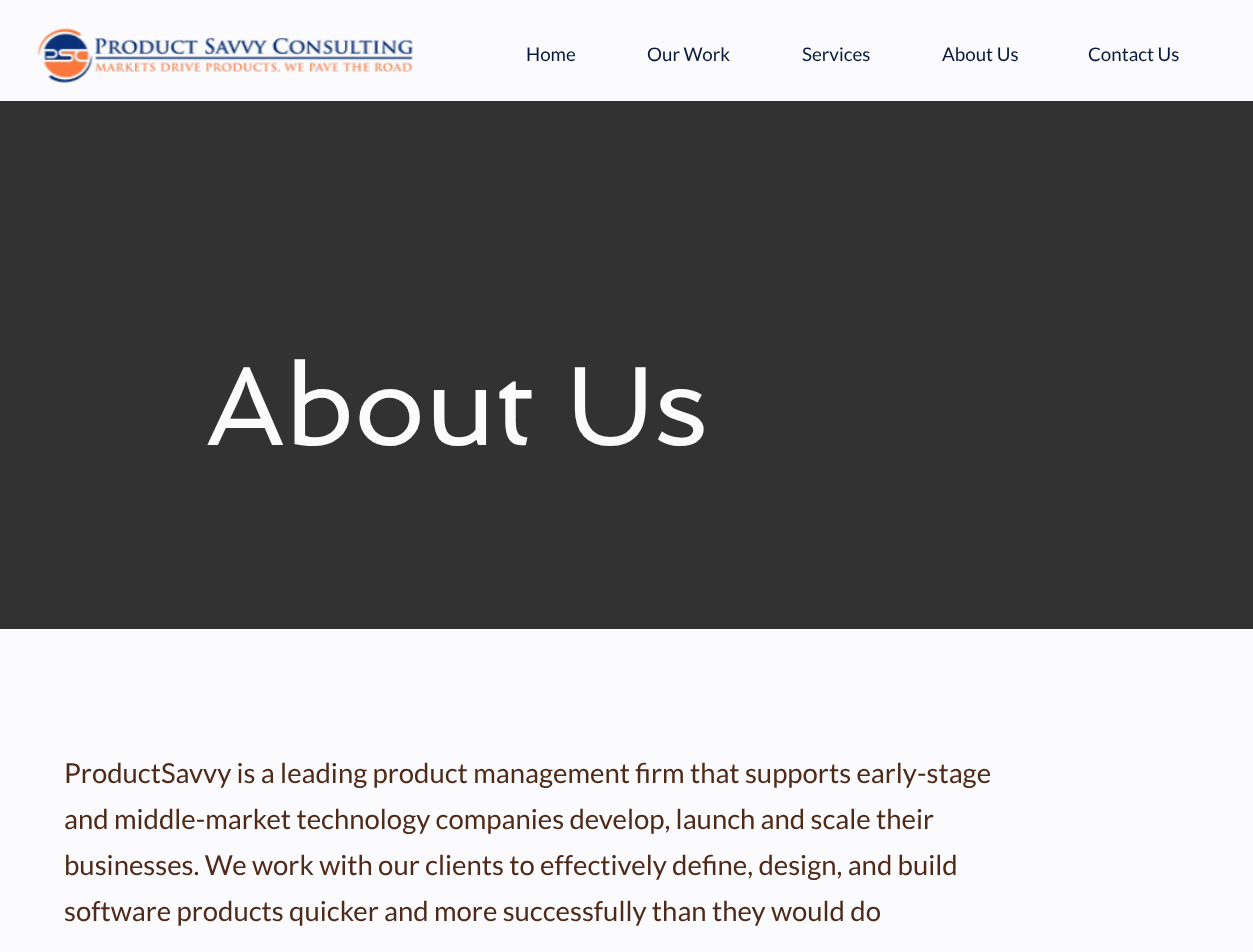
async function draw(canvas) {
	canvas.width = 1253;
	canvas.height = 952;
	const c = canvas.getContext('2d');
	c.miterLimit = 4;
	c.fontKerning = 'normal';
	async function loadImage(src) {
		const img = new Image();
		img.src = src;
		await img.decode();
		return img;
	}

	c.fillStyle = '#fbfbfd';
	c.fillRect(0, 0, 1253, 952);
	c.drawImage(await loadImage('img1.png'), 37, 28, 376, 55);
	c.font = '18.75px Lato';
	c.fillStyle = '#0a193b';
	for (const [text, x, y] of [
		['Home', 526, 61],
		['Our Work', 647, 61],
		['Services', 802, 61],
		['About Us', 942, 61],
		['Contact Us', 1088, 61],
	]) {
		c.fillText(text, x, y);
	}
	c.fillStyle = '#323233';
	c.fillRect(0, 101, 1253, 528);
	c.font = '112.5px Spinnaker';
	c.fillStyle = '#fbfbfb';
	c.fillText('About Us', 206, 445);
	c.font = '27.5px Lato';
	c.fillStyle = '#4f2a19';
	for (const [text, x, y] of [
		['ProductSavvy is a leading product management firm that supports early-stage', 64, 783],
		['and middle-market technology companies develop, launch and scale their', 64, 829],
		['businesses. We work with our clients to effectively define, design, and build', 64, 875],
		['software products quicker and more successfully than they would do', 64, 921],
	]) {
		c.fillText(text, x, y);
	}
}

draw(document.querySelector('canvas'));
